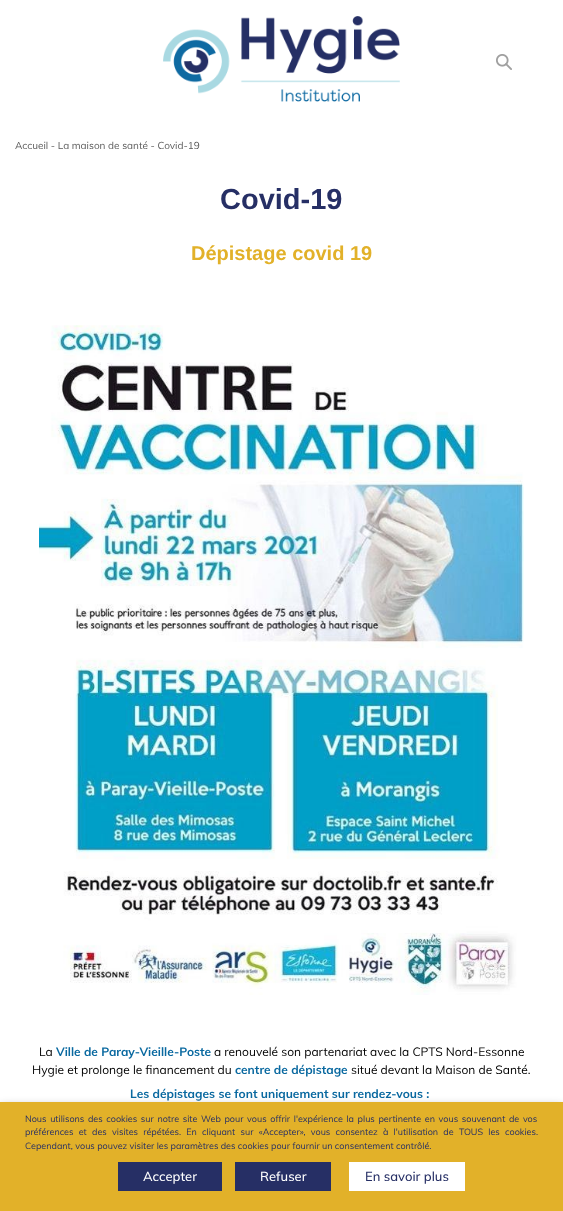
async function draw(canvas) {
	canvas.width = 563;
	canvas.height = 1211;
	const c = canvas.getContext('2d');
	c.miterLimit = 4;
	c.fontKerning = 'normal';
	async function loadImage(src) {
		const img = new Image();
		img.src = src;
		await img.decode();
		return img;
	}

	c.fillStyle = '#fff';
	c.fillRect(0, 0, 563, 1211);
	c.drawImage(await loadImage('img1.png'), 163, 16, 237, 86);
	c.drawImage(await loadImage('img2.png'), 496, 54, 16, 16);
	c.font = '10px Mulish';
	c.fillStyle = '#595959';
	c.fillText('Accueil - La maison de santé - Covid-19', 15, 149);
	c.font = 'bold 29px Liberation Sans';
	c.fillStyle = '#262f65';
	c.fillText('Covid-19', 220, 209);
	c.font = 'bold 20px Liberation Sans';
	c.fillStyle = '#e2b129';
	c.fillText('Dépistage covid 19', 191, 260);
	c.drawImage(await loadImage('img3.png'), 39, 325, 485, 670);
	c.font = '12px Mulish';
	c.fillStyle = '#000';
	c.fillText('La', 39, 1056);
	c.font = 'bold 12px Mulish';
	c.fillStyle = '#0a69a0';
	c.fillText('Ville de Paray-Vieille-Poste', 56, 1056);
	c.font = '12px Mulish';
	c.fillStyle = '#000';
	c.fillText('a renouvelé son partenariat avec la CPTS Nord-Essonne', 214, 1056);
	c.fillText('Hygie et prolonge le financement du', 32, 1074);
	c.font = 'bold 12px Mulish';
	c.fillStyle = '#0a69a0';
	c.fillText('centre de dépistage', 235, 1074);
	c.font = '12px Mulish';
	c.fillStyle = '#000';
	c.fillText('situé devant la Maison de Santé.', 351, 1074);
	c.font = 'bold 12px Mulish';
	c.fillStyle = '#0a69a0';
	c.fillText('Les dépistages se font uniquement sur rendez-vous :', 130, 1098);
	c.fillStyle = '#00000080';
	c.filter = 'blur(5px)';
	c.beginPath();
	c.rect(0, 1107, 563, 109);
	c.fill();
	c.filter = 'none';
	c.fillStyle = '#e2b129';
	c.fillRect(0, 1102, 563, 109);
	c.wordSpacing = '1.3px';
	c.font = '9px Mulish';
	c.fillStyle = '#262f65';
	c.fillText('Nous utilisons des cookies sur notre site Web pour vous offrir l\'expérience la plus pertinente en vous souvenant de vos', 25, 1122);
	c.wordSpacing = '2.9px';
	c.fillText('préférences et des visites répétées. En cliquant sur «Accepter», vous consentez à l\'utilisation de TOUS les cookies.', 25, 1135);
	c.wordSpacing = '0px';
	c.fillText('Cependant, vous pouvez visiter les paramètres des cookies pour fournir un consentement contrôlé.', 25, 1149);
	c.fillRect(118, 1162, 104, 29);
	c.font = '500 13px Mulish';
	c.fillStyle = '#fff';
	c.fillText('Accepter', 143, 1181);
	c.fillStyle = '#262f65';
	c.fillRect(235, 1162, 96, 29);
	c.fillStyle = '#fff';
	c.fillText('Refuser', 260, 1181);
	c.fillRect(349, 1162, 116, 29);
	c.fillStyle = '#262f65';
	c.fillText('En savoir plus', 365, 1181);
}

draw(document.querySelector('canvas'));
